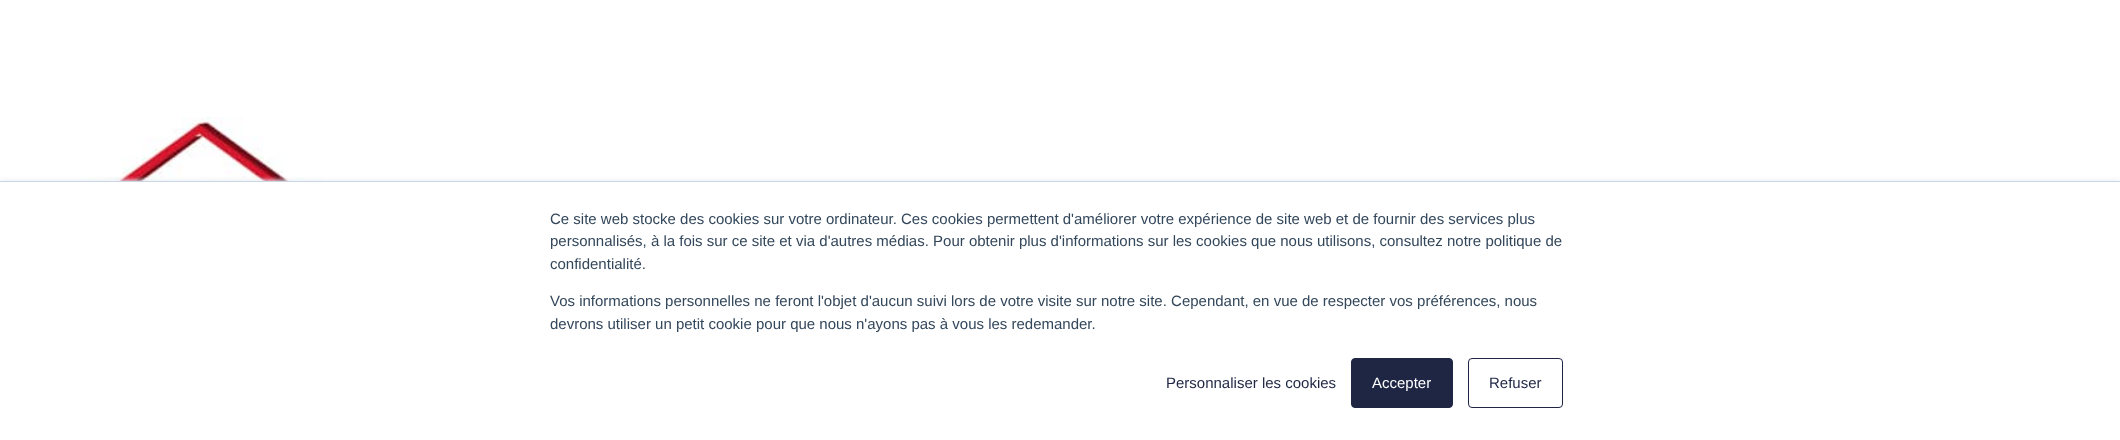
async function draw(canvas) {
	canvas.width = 2120;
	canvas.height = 440;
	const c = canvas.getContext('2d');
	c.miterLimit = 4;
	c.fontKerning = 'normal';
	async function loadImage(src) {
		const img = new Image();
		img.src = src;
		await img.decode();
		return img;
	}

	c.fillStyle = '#fff';
	c.fillRect(0, 0, 2120, 440);
	c.drawImage(await loadImage('img1.png'), 82, 117, 244, 64);
	c.fillStyle = '#eaf0f6';
	c.filter = 'blur(2px)';
	c.beginPath();
	c.rect(0, 180, 2120, 259);
	c.fill();
	c.filter = 'none';
	c.fillStyle = '#fff';
	c.fillRect(0, 182, 2120, 258);
	c.fillStyle = '#cbd6e2';
	c.fillRect(0, 181, 2120, 1);
	c.font = '15px Liberation Sans';
	c.fillStyle = '#33475b';
	for (const [text, x, y] of [
		['Ce site web stocke des cookies sur votre ordinateur. Ces cookies permettent d\'améliorer votre expérience de site web et de fournir des services plus', 550, 224],
		['personnalisés, à la fois sur ce site et via d\'autres médias. Pour obtenir plus d\'informations sur les cookies que nous utilisons, consultez notre politique de', 550, 246],
		['confidentialité.', 550, 269],
		['Vos informations personnelles ne feront l\'objet d\'aucun suivi lors de votre visite sur notre site. Cependant, en vue de respecter vos préférences, nous', 550, 306],
		['devrons utiliser un petit cookie pour que nous n\'ayons pas à vous les redemander.', 550, 329],
	]) {
		c.fillText(text, x, y);
	}
	c.fillStyle = '#1e2644';
	c.fillText('Personnaliser les cookies', 1166, 388);
	c.beginPath();
	c.roundRect(1351.5, 358.5, 101, 49, 3.5);
	c.fill();
	c.strokeStyle = '#1e2644';
	c.stroke();
	c.fillStyle = '#fff';
	c.fillText('Accepter', 1372, 388);
	c.beginPath();
	c.roundRect(1468.5, 358.5, 94, 49, 3.5);
	c.stroke();
	c.fillStyle = '#1e2644';
	c.fillText('Refuser', 1489, 388);
}

draw(document.querySelector('canvas'));
